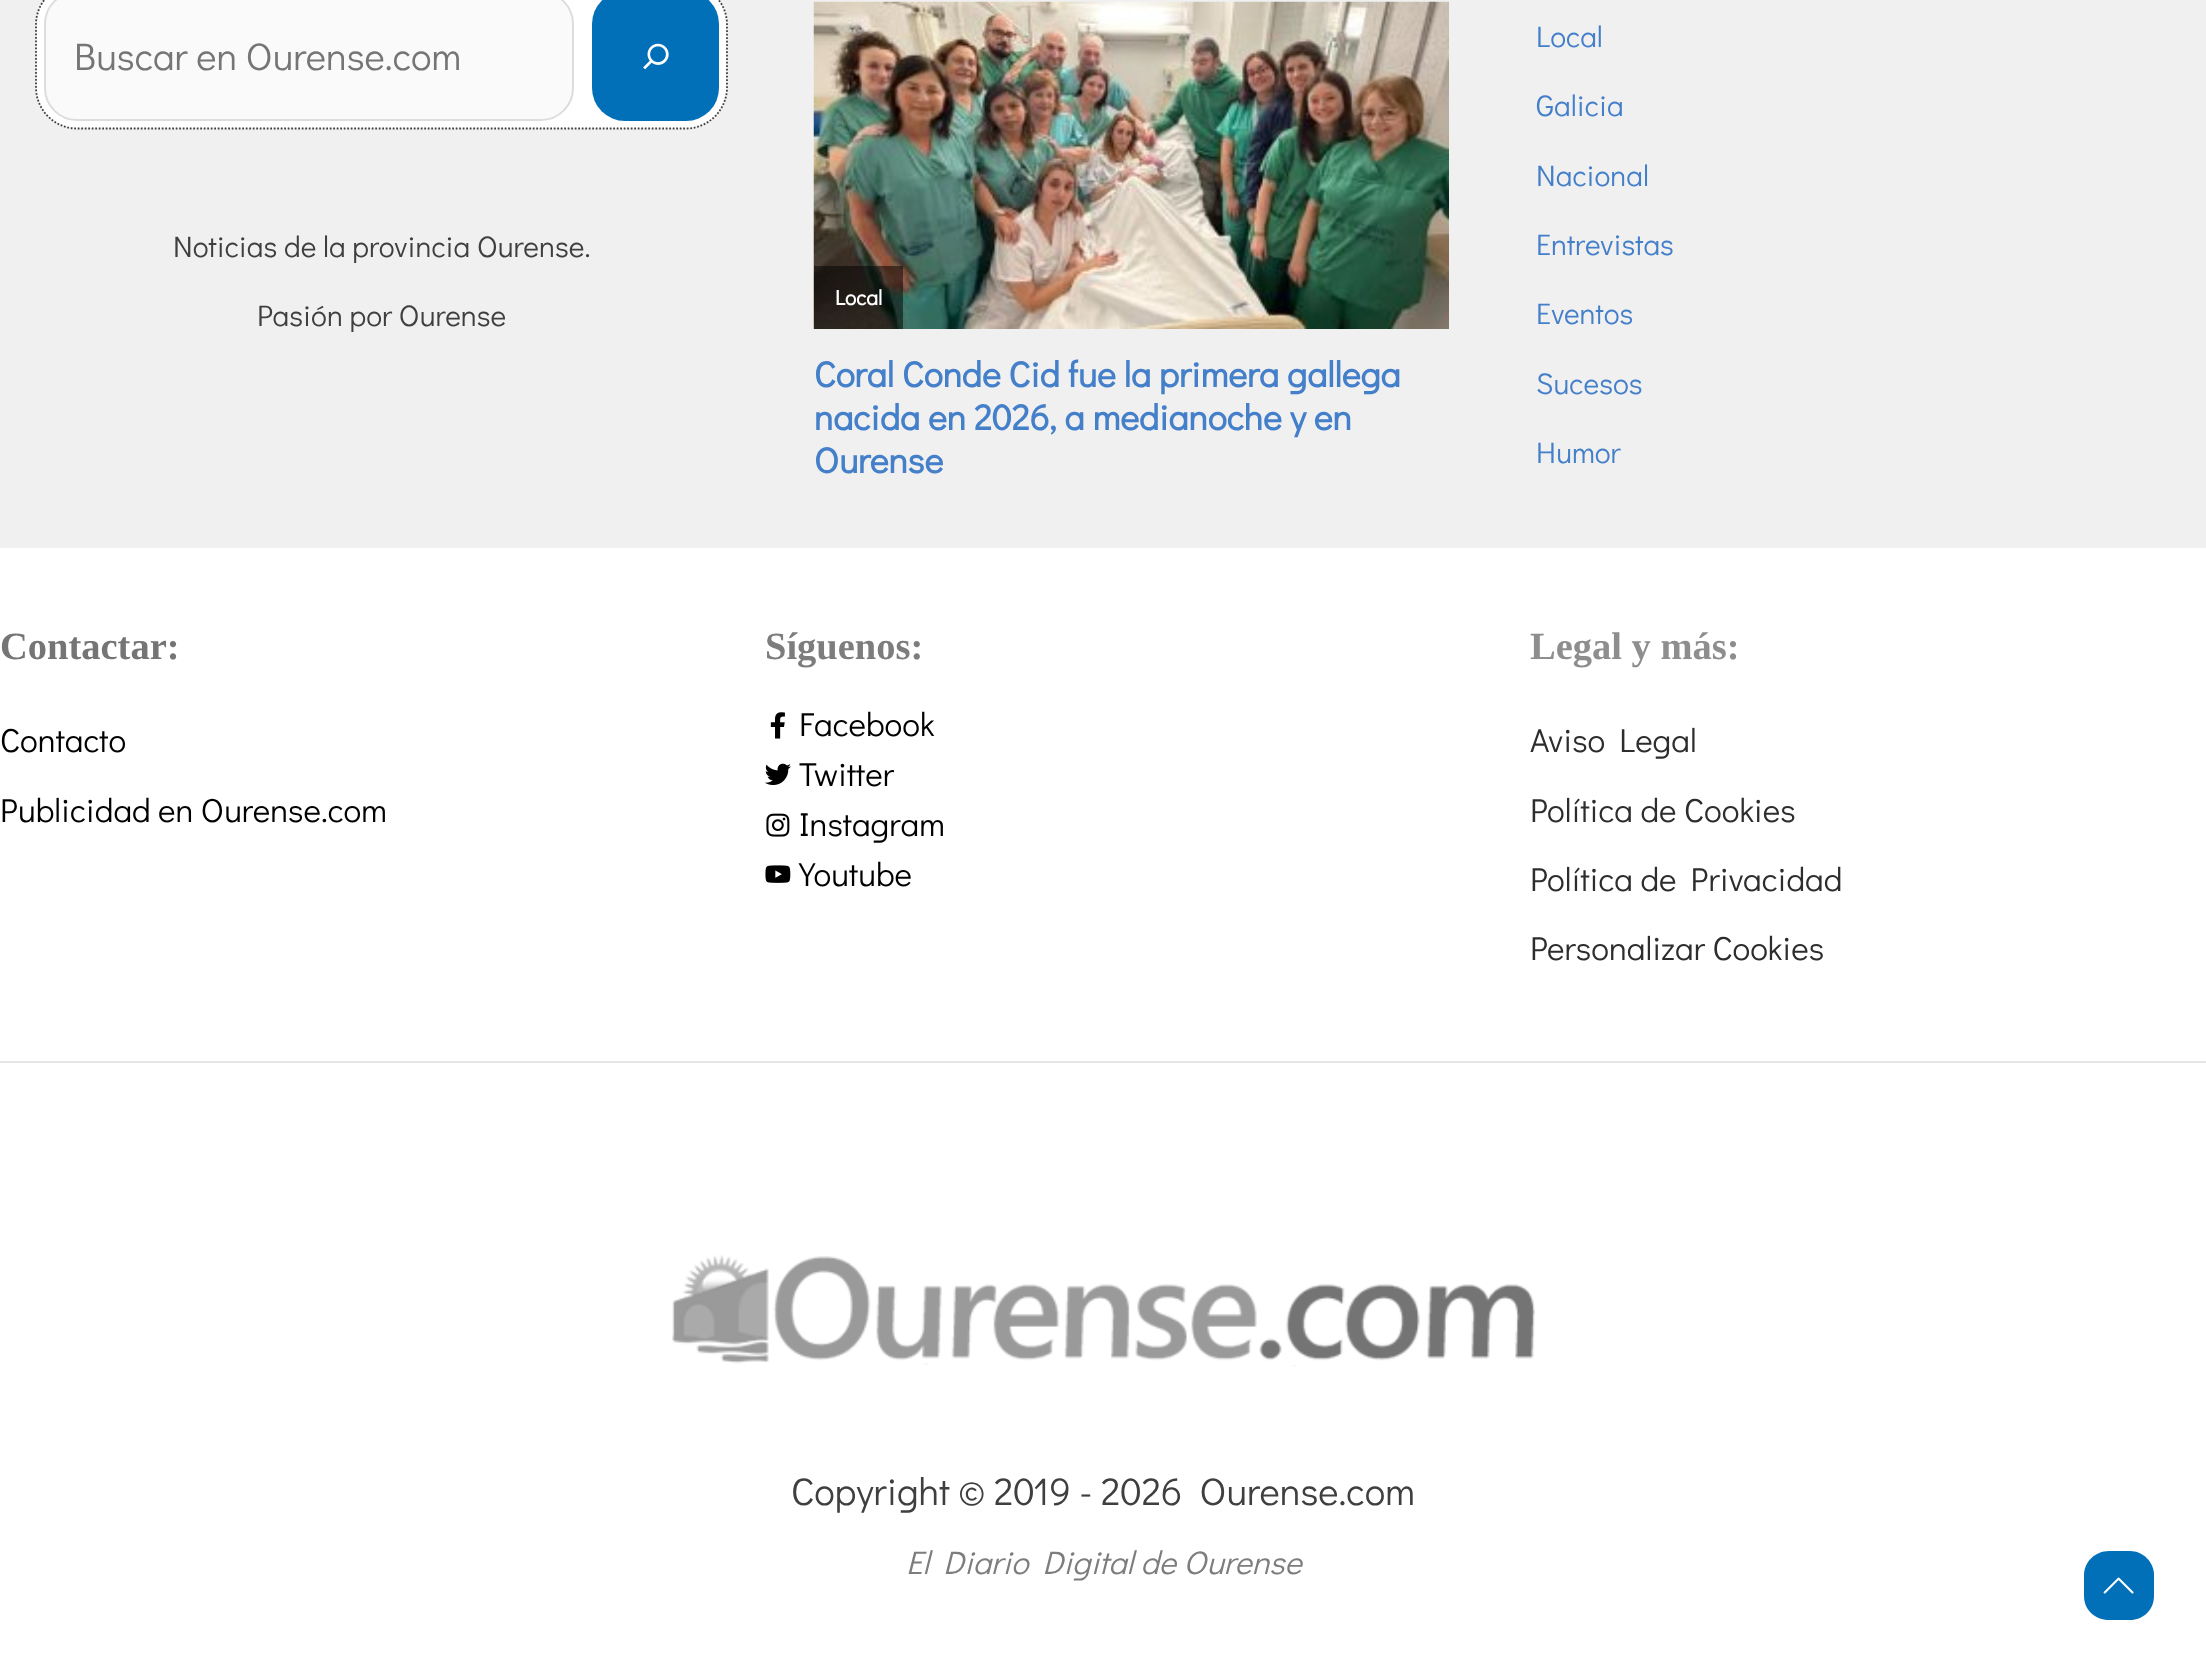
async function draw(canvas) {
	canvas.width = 2206;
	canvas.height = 1672;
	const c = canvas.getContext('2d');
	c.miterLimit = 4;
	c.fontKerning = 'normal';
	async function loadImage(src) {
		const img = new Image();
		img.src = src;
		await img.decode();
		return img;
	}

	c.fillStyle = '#fff';
	c.fillRect(0, 0, 2206, 1672);
	c.fillStyle = '#f0f0f0';
	c.fillRect(0, 0, 2206, 548);
	c.fillStyle = '#fff';
	c.beginPath();
	c.roundRect(37, -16, 689, 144, 40);
	c.fill();
	c.fillStyle = '#fafafa';
	c.beginPath();
	c.roundRect(45, -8, 528, 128, 32);
	c.fill();
	c.strokeStyle = '#ddd';
	c.lineWidth = 2;
	c.stroke();
	c.font = '38.5px Didact Gothic';
	c.fillStyle = '#757575';
	c.fillText('Buscar en Ourense.com', 74, 70);
	c.fillStyle = '#0170b9';
	c.beginPath();
	c.roundRect(592, -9, 127, 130, 33);
	c.fill();
	c.beginPath();
	c.moveTo(77, -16.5);
	c.lineTo(686, -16.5);
	c.bezierCurveTo(708.5, -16.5, 727, 2, 727, 24.5);
	c.lineTo(727, 87.5);
	c.bezierCurveTo(727, 110, 708.5, 128.5, 686, 128.5);
	c.lineTo(77, 128.5);
	c.bezierCurveTo(54.5, 128.5, 36, 110, 36, 87.5);
	c.lineTo(36, 24.5);
	c.bezierCurveTo(36, 2, 54.5, -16.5, 77, -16.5);
	c.closePath();
	c.strokeStyle = '#3f3f3f';
	c.lineWidth = 1.8;
	c.setLineDash([1.75, 1.75]);
	c.stroke();
	c.drawImage(await loadImage('img1.png'), 643, 43, 26, 27);
	c.font = '29.75px Didact Gothic';
	c.fillStyle = '#3f3f3f';
	c.fillText('Noticias de la provincia Ourense.', 173, 257);
	c.fillText('Pasión por Ourense', 257, 326);
	c.fillStyle = '#447fca';
	for (const [text, x, y] of [
		['Local', 1536, 47],
		['Galicia', 1536, 116],
		['Nacional', 1536, 186],
		['Entrevistas', 1536, 255],
		['Eventos', 1536, 324],
		['Sucesos', 1536, 394],
		['Humor', 1536, 463],
	]) {
		c.fillText(text, x, y);
	}
	c.drawImage(await loadImage('img2.png'), 813, 1, 636, 328);
	c.fillStyle = '#00000080';
	c.fillRect(814, 266, 89, 63);
	c.font = 'bold 21px Didact Gothic';
	c.fillStyle = '#fff';
	c.fillText('Local', 835, 305);
	c.font = 'bold 35.75px Didact Gothic';
	c.fillStyle = '#447fca';
	for (const [text, x, y] of [
		['Coral Conde Cid fue la primera gallega', 814, 387],
		['nacida en 2026, a medianoche y en', 814, 430],
		['Ourense', 814, 473],
	]) {
		c.fillText(text, x, y);
	}
	c.font = 'bold 38.5px Liberation Serif';
	c.fillStyle = '#757575';
	c.fillText('Contactar:', 0, 659);
	c.font = '33.25px Didact Gothic';
	c.fillStyle = '#000';
	c.fillText('Contacto', 0, 752);
	c.fillText('Publicidad en Ourense.com', 0, 822);
	c.font = 'bold 38.5px Liberation Serif';
	c.fillStyle = '#7d7d7d';
	c.fillText('Síguenos:', 765, 659);
	c.drawImage(await loadImage('img3.png'), 770, 712, 15, 27);
	c.font = '33.25px Didact Gothic';
	c.fillStyle = '#000';
	c.fillText('Facebook', 799, 736);
	c.drawImage(await loadImage('img4.png'), 765, 763, 26, 22);
	c.fillText('Twitter', 799, 786);
	c.drawImage(await loadImage('img5.png'), 766, 813, 24, 24);
	c.fillText('Instagram', 799, 836);
	c.drawImage(await loadImage('img6.png'), 765, 865, 26, 18);
	c.fillText('Youtube', 799, 886);
	c.font = 'bold 38.5px Liberation Serif';
	c.fillStyle = '#8e8e8e';
	c.fillText('Legal y más:', 1530, 659);
	c.font = '33.25px Didact Gothic';
	c.fillStyle = '#2e2d2d';
	for (const [text, x, y] of [
		['Aviso Legal', 1530, 752],
		['Política de Cookies', 1530, 822],
		['Política de Privacidad', 1530, 891],
		['Personalizar Cookies', 1530, 960],
	]) {
		c.fillText(text, x, y);
	}
	c.fillStyle = '#e5e5e5';
	c.fillRect(0, 1061, 2206, 2);
	c.drawImage(await loadImage('img7.png'), 672, 1255, 863, 112);
	c.font = '38.5px Didact Gothic';
	c.fillStyle = '#3f3f3f';
	c.fillText('Copyright © 2019 - 2026  Ourense.com', 791, 1505);
	c.font = 'italic 32.75px Didact Gothic';
	c.fillStyle = '#7d7d7d';
	c.fillText('El Diario Digital de Ourense', 906, 1574);
	c.fillStyle = '#0170b9';
	c.beginPath();
	c.moveTo(2130, 1620);
	c.lineTo(2109, 1620);
	c.bezierCurveTo(2095, 1620, 2084, 1610, 2084, 1596);
	c.lineTo(2084, 1575);
	c.bezierCurveTo(2084, 1562, 2095, 1551, 2109, 1551);
	c.lineTo(2130, 1551);
	c.bezierCurveTo(2143, 1551, 2154, 1562, 2154, 1575);
	c.lineTo(2154, 1596);
	c.bezierCurveTo(2154, 1610, 2143, 1620, 2130, 1620);
	c.closePath();
	c.fill();
	c.drawImage(await loadImage('img8.png'), 2103, 1577, 31, 17);
}

draw(document.querySelector('canvas'));
